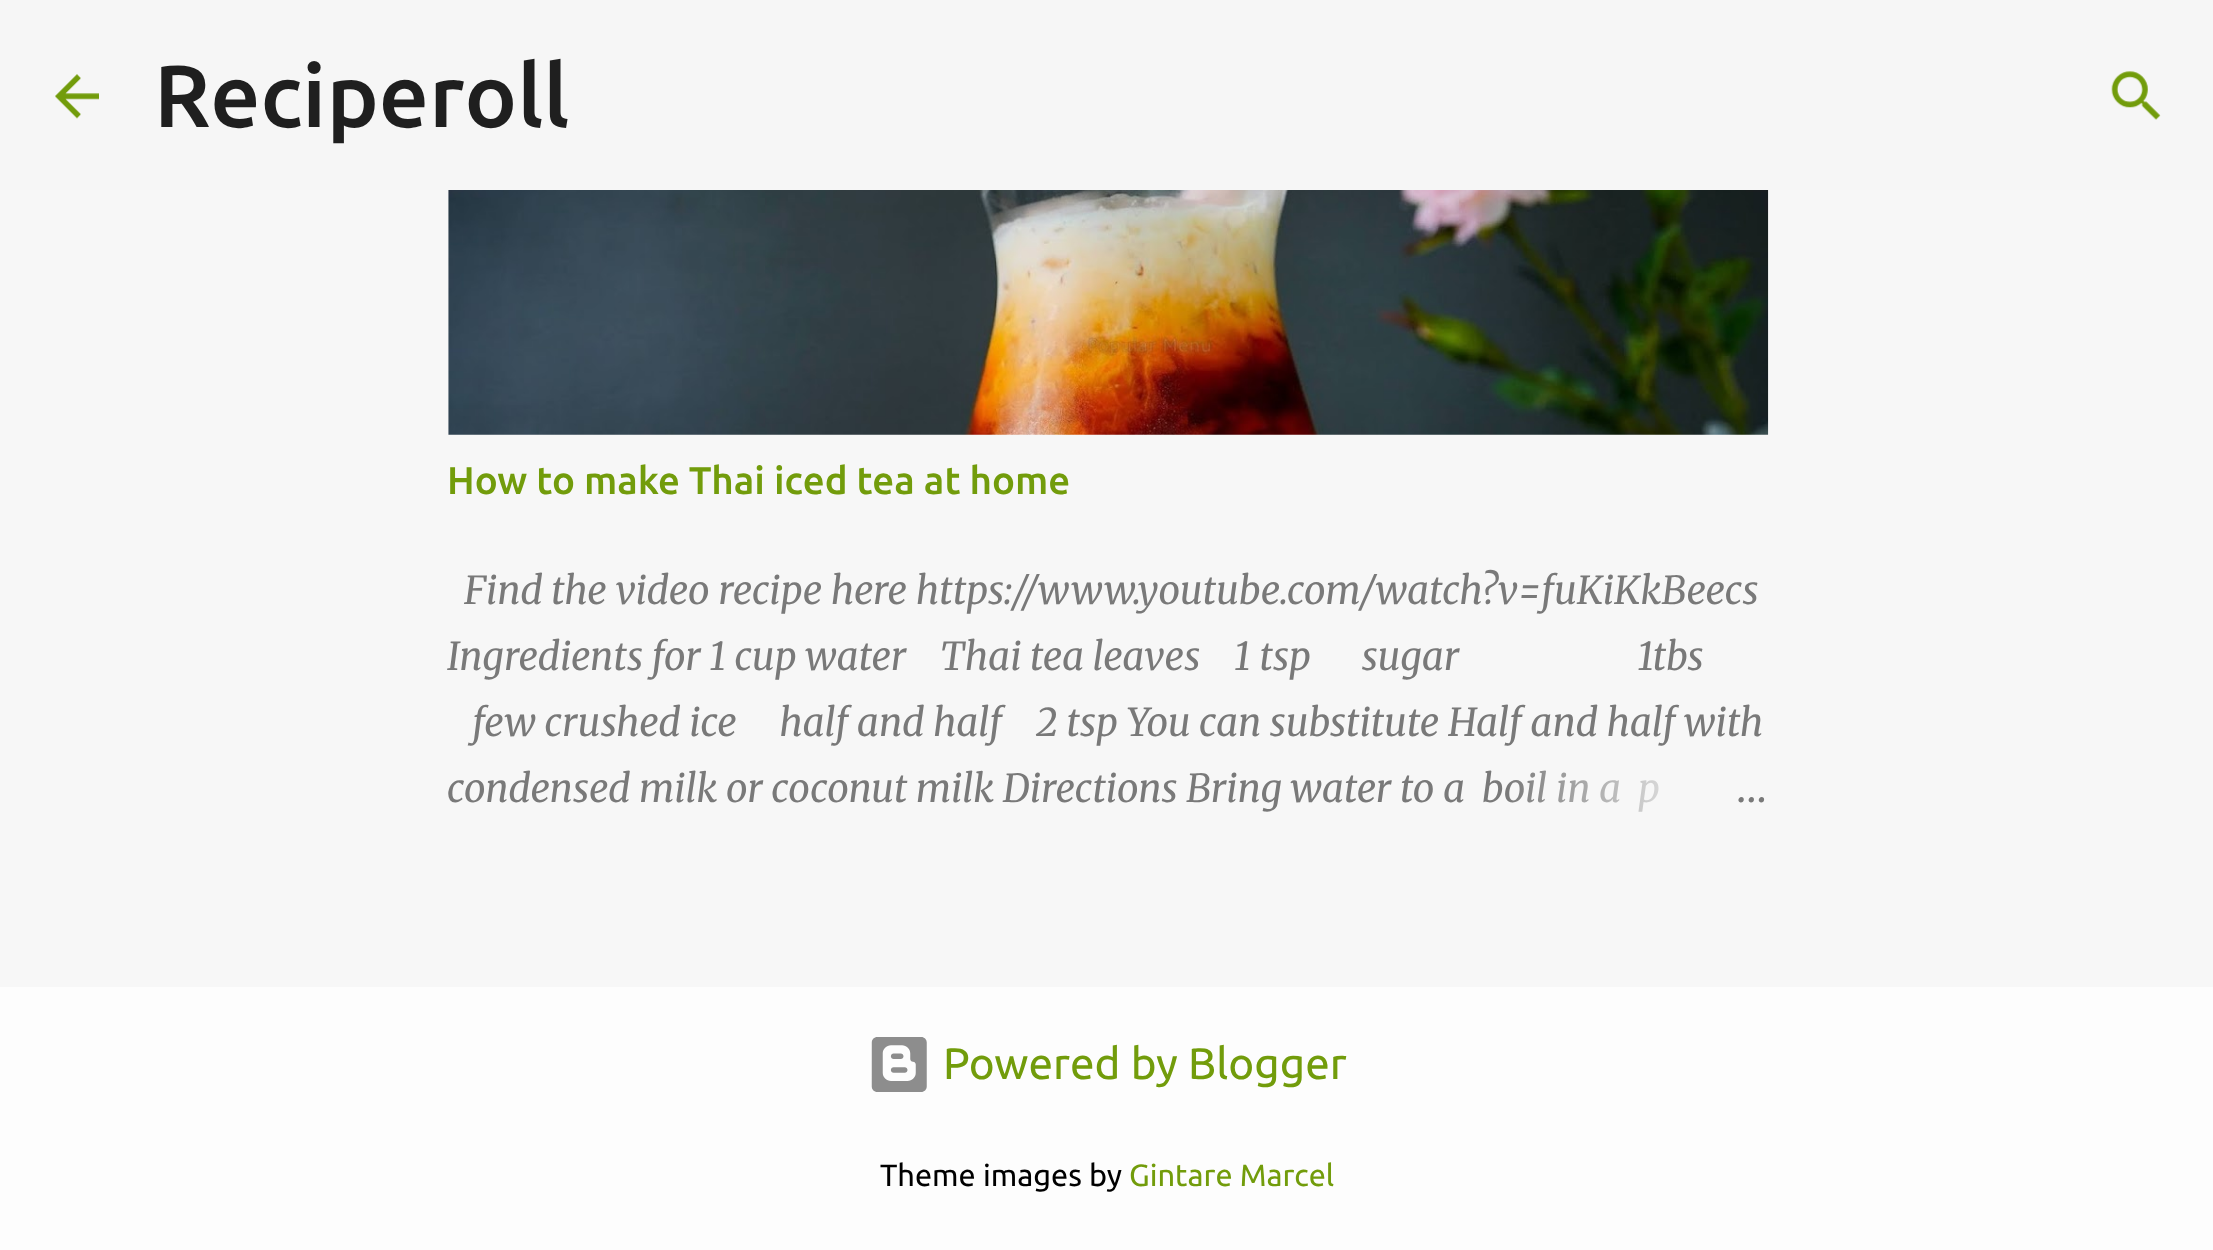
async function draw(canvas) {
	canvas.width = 2213;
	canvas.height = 1250;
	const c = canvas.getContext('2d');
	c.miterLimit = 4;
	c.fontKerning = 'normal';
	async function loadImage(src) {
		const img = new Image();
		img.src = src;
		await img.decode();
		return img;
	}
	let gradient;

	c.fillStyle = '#fdfdfd';
	c.fillRect(0, 0, 2213, 1250);
	c.fillStyle = '#f6f6f6';
	c.fillRect(0, 0, 2213, 190);
	c.drawImage(await loadImage('img1.png'), 55, 74, 44, 45);
	c.font = '500 88px Ubuntu';
	c.fillStyle = '#1f1f1f';
	c.fillText('Reciperoll', 154, 127);
	c.drawImage(await loadImage('img2.png'), 2111, 71, 50, 49);
	c.fillStyle = '#f7f7f7';
	c.fillRect(0, 190, 2213, 797);
	c.drawImage(await loadImage('img3.png'), 448, 190, 1321, 245);
	c.font = '500 38.5px Ubuntu';
	c.fillStyle = '#729c0b';
	c.fillText('How to make Thai iced tea at home', 447, 494);
	c.font = 'italic 38.5px Merriweather';
	c.fillStyle = '#797979';
	for (const [text, x, y] of [
		['Find the video recipe here https://www.youtube.com/watch?v=fuKiKkBeecs', 464, 604],
		['Ingredients for 1 cup water    Thai tea leaves    1 tsp      sugar                     1tbs', 447, 670],
		['few crushed ice     half and half    2 tsp You can substitute Half and half with', 472, 736],
		['condensed milk or coconut milk Directions Bring water to a  boil in a  p', 447, 802],
	]) {
		c.fillText(text, x, y);
	}
	gradient = c.createLinearGradient(1768, 789, 1504, 789);
	gradient.addColorStop(0, '#f7f7f7');
	gradient.addColorStop(0.2, '#f7f7f7');
	gradient.addColorStop(1, '#f7f7f700');
	c.fillStyle = gradient;
	c.fillRect(1509, 770, 150, 42);
	c.font = '38.5px Merriweather';
	c.fillStyle = '#797979';
	c.fillText('…', 1736, 802);
	c.drawImage(await loadImage('img4.png'), 871, 1037, 56, 55);
	c.font = '44px Ubuntu';
	c.fillStyle = '#729c0b';
	c.fillText('Powered by Blogger', 943, 1079);
	c.font = '30.75px Ubuntu';
	c.fillStyle = '#000';
	c.fillText('Theme images by', 880, 1186);
	c.fillStyle = '#729c0b';
	c.fillText('Gintare Marcel', 1129, 1186);
}

draw(document.querySelector('canvas'));
